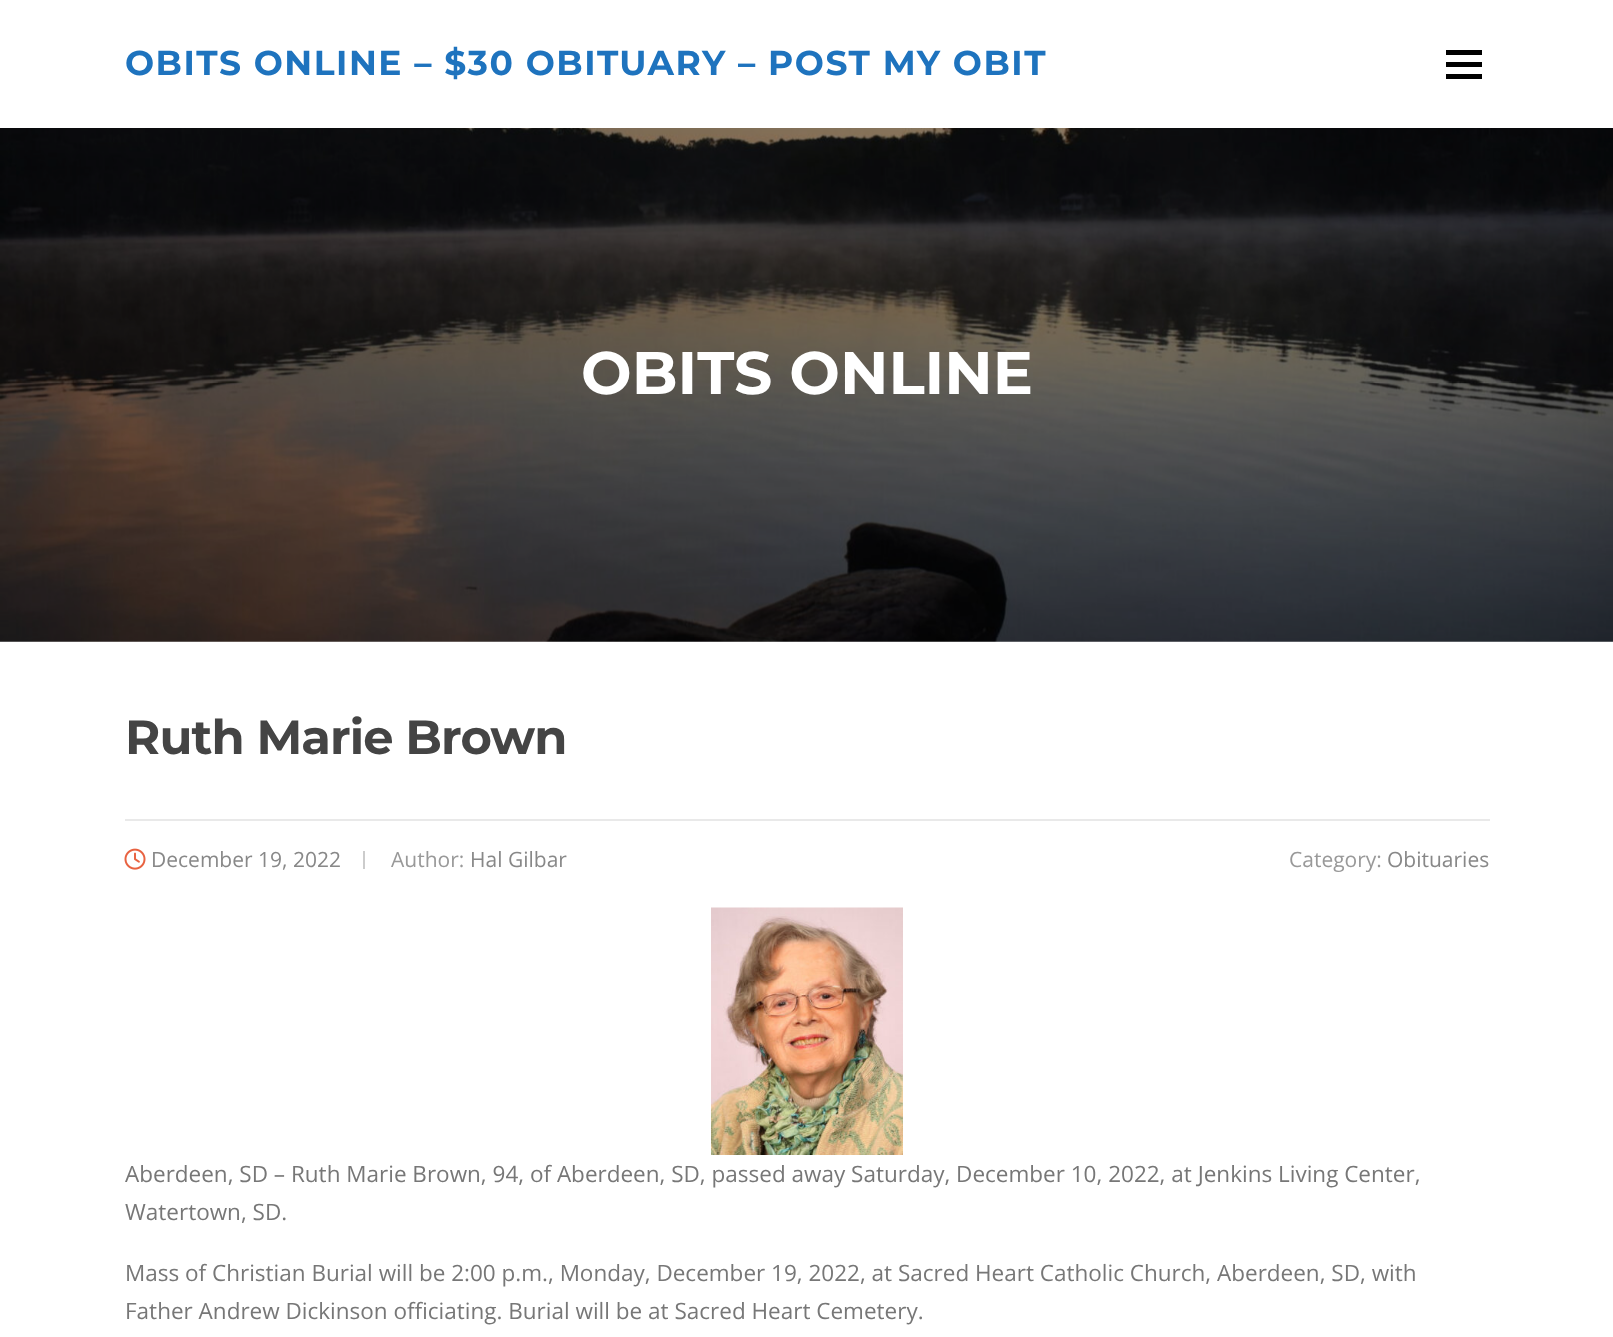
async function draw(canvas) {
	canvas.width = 1613;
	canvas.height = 1337;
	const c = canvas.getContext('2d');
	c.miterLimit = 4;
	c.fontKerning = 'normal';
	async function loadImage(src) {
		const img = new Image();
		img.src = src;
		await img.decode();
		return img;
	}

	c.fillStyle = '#fff';
	c.fillRect(0, 0, 1613, 1337);
	c.letterSpacing = '1.5px';
	c.font = 'bold 34.5px Montserrat';
	c.fillStyle = '#1e73be';
	c.fillText('OBITS ONLINE – $30 OBITUARY – POST MY OBIT', 125, 75);
	for (const [x, y, w, h, color] of [
		[1446, 62, 36, 5, '#000'],
		[1446, 50, 36, 5, '#000'],
		[1446, 74, 36, 5, '#000'],
	]) {
		c.fillStyle = color;
		c.fillRect(x, y, w, h);
	}
	c.drawImage(await loadImage('img1.png'), 0, 128, 1613, 514);
	c.letterSpacing = '0px';
	c.font = 'bold 60px Montserrat';
	c.fillStyle = '#fff';
	c.fillText('OBITS ONLINE', 581, 394);
	c.letterSpacing = '-0.9px';
	c.font = 'bold 48px Montserrat';
	c.fillStyle = '#444';
	c.fillText('Ruth Marie Brown', 125, 754);
	c.fillStyle = '#e9e9e9';
	c.fillRect(125, 819, 1365, 2);
	c.drawImage(await loadImage('img2.png'), 124, 848, 22, 22);
	c.letterSpacing = '0px';
	c.font = '21px Open Sans';
	c.fillStyle = '#888';
	c.fillText('December 19, 2022', 151, 867);
	c.fillStyle = '#ccc';
	c.fillRect(363, 851, 2, 18);
	c.fillStyle = '#999';
	c.fillText('Author:', 391, 867);
	c.fillStyle = '#888';
	c.fillText('Hal Gilbar', 470, 867);
	c.fillStyle = '#999';
	c.fillText('Category:', 1289, 867);
	c.fillStyle = '#888';
	c.fillText('Obituaries', 1387, 867);
	c.drawImage(await loadImage('img3.png'), 711, 907, 192, 248);
	c.font = '22.5px Open Sans';
	c.fillStyle = '#777';
	for (const [text, x, y] of [
		['Aberdeen, SD – Ruth Marie Brown, 94, of Aberdeen, SD, passed away Saturday, December 10, 2022, at Jenkins Living Center,', 125, 1182],
		['Watertown, SD.', 125, 1220],
		['Mass of Christian Burial will be 2:00 p.m., Monday, December 19, 2022, at Sacred Heart Catholic Church, Aberdeen, SD, with', 125, 1281],
		['Father Andrew Dickinson officiating. Burial will be at Sacred Heart Cemetery.', 125, 1319],
	]) {
		c.fillText(text, x, y);
	}
}

draw(document.querySelector('canvas'));
